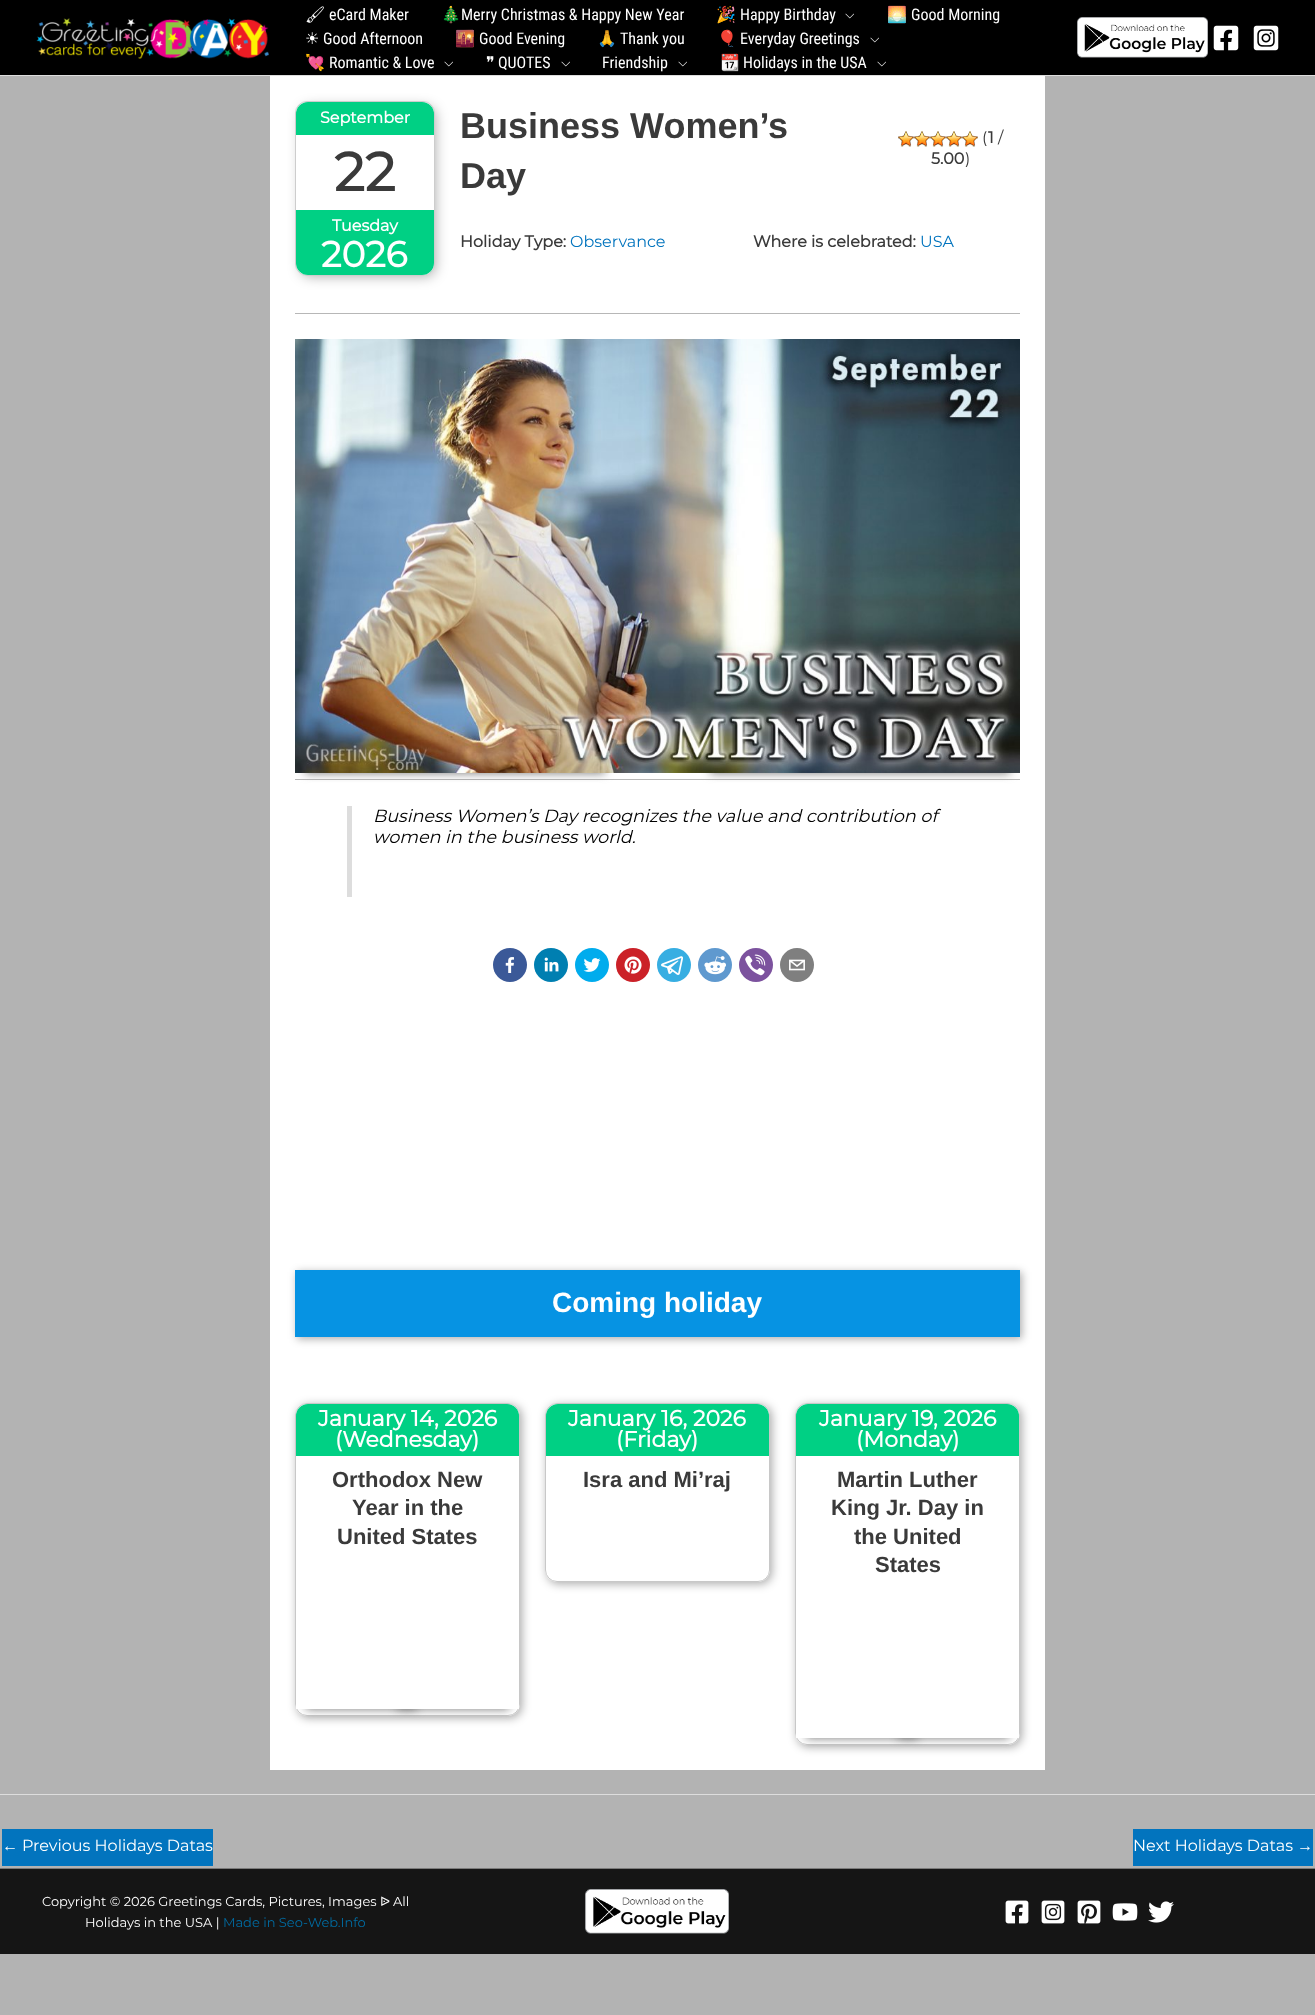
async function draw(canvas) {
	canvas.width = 1315;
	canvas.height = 2015;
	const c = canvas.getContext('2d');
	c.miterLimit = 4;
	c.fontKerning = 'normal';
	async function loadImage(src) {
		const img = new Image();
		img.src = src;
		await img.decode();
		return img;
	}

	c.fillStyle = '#b3b3b3';
	c.fillRect(0, 0, 1315, 2015);
	c.fillStyle = '#000';
	c.fillRect(0, 0, 1315, 75);
	c.fillStyle = '#ddd';
	c.fillRect(0, 75, 1315, 1);
	c.drawImage(await loadImage('img1.png'), 36, 18, 233, 41);
	c.font = '16px Noto Emoji';
	c.fillStyle = '#fff';
	c.fillText('🖌', 305, 20);
	c.font = '16px Roboto Condensed';
	c.fillText('eCard Maker', 329, 20);
	c.font = '16px Noto Color Emoji';
	c.fillText('🎄', 441, 20);
	c.font = '16px Roboto Condensed';
	c.fillText('Merry Christmas & Happy New Year', 461, 20);
	c.font = '16px Noto Color Emoji';
	c.fillText('🎉', 716, 20);
	c.font = '16px Roboto Condensed';
	c.fillText('Happy Birthday', 740, 20);
	c.drawImage(await loadImage('img2.png'), 845, 13, 9, 6);
	c.font = '16px Noto Color Emoji';
	c.fillText('🌅', 887, 20);
	c.font = '16px Roboto Condensed';
	c.fillText('Good Morning', 911, 20);
	c.font = '16px DejaVu Sans';
	c.fillText('☀', 305, 44);
	c.font = '16px Roboto Condensed';
	c.fillText('Good Afternoon', 323, 44);
	c.font = '16px Noto Color Emoji';
	c.fillText('🌇', 455, 44);
	c.font = '16px Roboto Condensed';
	c.fillText('Good Evening', 479, 44);
	c.font = '16px Noto Color Emoji';
	c.fillText('🙏', 597, 44);
	c.font = '16px Roboto Condensed';
	c.fillText('Thank you', 620, 44);
	c.font = '16px Noto Color Emoji';
	c.fillText('🎈', 717, 44);
	c.font = '16px Roboto Condensed';
	c.fillText('Everyday Greetings', 740, 44);
	c.drawImage(await loadImage('img2.png'), 870, 37, 9, 6);
	c.font = '16px Noto Color Emoji';
	c.fillText('💘', 305, 68);
	c.font = '16px Roboto Condensed';
	c.fillText('Romantic & Love', 329, 68);
	c.drawImage(await loadImage('img2.png'), 444, 61, 9, 6);
	c.font = '16px DejaVu Sans';
	c.fillText('❞', 486, 68);
	c.font = '16px Roboto Condensed';
	c.fillText('QUOTES', 498, 68);
	c.drawImage(await loadImage('img2.png'), 561, 61, 9, 6);
	c.fillText('Friendship', 602, 68);
	c.drawImage(await loadImage('img2.png'), 678, 61, 9, 6);
	c.font = '16px Noto Color Emoji';
	c.fillText('📆', 720, 68);
	c.font = '16px Roboto Condensed';
	c.fillText('Holidays in the USA', 743, 68);
	c.drawImage(await loadImage('img2.png'), 877, 61, 9, 6);
	c.drawImage(await loadImage('img3.png'), 1077, 17, 131, 41);
	c.drawImage(await loadImage('img4.png'), 1213, 25, 26, 26);
	c.drawImage(await loadImage('img5.png'), 1253, 25, 26, 26);
	c.fillRect(270, 76, 775, 1694);
	c.fillStyle = '#00000057';
	c.filter = 'blur(6.5px)';
	c.beginPath();
	c.roundRect(301, 107, 134, 169, 9);
	c.fill();
	c.filter = 'none';
	c.fillStyle = '#fff';
	c.beginPath();
	c.roundRect(295.5, 101.5, 139, 174, 11.5);
	c.fill();
	c.strokeStyle = '#cdcdcd';
	c.stroke();
	c.fillStyle = '#00d084';
	c.beginPath();
	c.roundRect(296, 102, 138, 33, [12, 12, 0, 0]);
	c.fill();
	c.font = 'bold 16px Montserrat';
	c.fillStyle = '#fff';
	c.fillText('September', 320, 123);
	c.font = 'bold 54px Montserrat';
	c.fillStyle = '#3a3a3a';
	c.fillText('22', 334, 191);
	c.fillStyle = '#00d084';
	c.beginPath();
	c.roundRect(296, 210, 138, 65, [0, 0, 12, 12]);
	c.fill();
	c.font = 'bold 16px Montserrat';
	c.fillStyle = '#fff';
	c.fillText('Tuesday', 332, 231);
	c.font = 'bold 36px Montserrat';
	c.fillText('2026', 321, 267);
	c.font = 'bold 36px Liberation Sans';
	c.fillStyle = '#3a3a3a';
	c.fillText('Business Women’s', 460, 138);
	c.fillText('Day', 460, 188);
	c.drawImage(await loadImage('img6.png'), 898, 131, 16, 16);
	c.drawImage(await loadImage('img6.png'), 914, 131, 16, 16);
	c.drawImage(await loadImage('img6.png'), 930, 131, 16, 16);
	c.drawImage(await loadImage('img6.png'), 946, 131, 16, 16);
	c.drawImage(await loadImage('img6.png'), 962, 131, 16, 16);
	c.font = '100 16px Montserrat';
	c.fillText('(', 982, 143);
	c.font = 'bold 16px Montserrat';
	c.fillText('1', 988, 143);
	c.font = '100 16px Montserrat';
	c.fillText('/', 998, 143);
	c.font = 'bold 16px Montserrat';
	c.fillText('5.00', 931, 164);
	c.font = '100 16px Montserrat';
	c.fillText(')', 965, 164);
	c.font = 'bold 16px Montserrat';
	c.fillText('Holiday Type:', 460, 247);
	c.font = '100 16px Montserrat';
	c.fillStyle = '#0274be';
	c.fillText('Observance', 570, 247);
	c.font = 'bold 16px Montserrat';
	c.fillStyle = '#3a3a3a';
	c.fillText('Where is celebrated:', 753, 247);
	c.font = '100 16px Montserrat';
	c.fillStyle = '#0274be';
	c.fillText('USA', 920, 247);
	c.fillStyle = '#b7b7b7';
	c.fillRect(295, 313, 725, 1);
	c.fillRect(295, 779, 725, 1);
	c.fillStyle = '#777';
	c.filter = 'blur(5px)';
	c.beginPath();
	c.rect(305, 701, 300, 72);
	c.fill();
	c.filter = 'none';
	c.filter = 'blur(5px)';
	c.beginPath();
	c.rect(710, 701, 300, 72);
	c.fill();
	c.filter = 'none';
	c.drawImage(await loadImage('img7.png'), 295, 339, 725, 434);
	c.fillStyle = '#ddd';
	c.fillRect(347, 806, 5, 91);
	c.font = 'italic 100 17.6px Montserrat';
	c.fillStyle = '#000';
	c.fillText('Business Women’s Day recognizes the value and contribution of', 373, 822);
	c.fillText('women in the business world.', 373, 843);
	c.fillStyle = '#3b5998';
	c.beginPath();
	c.arc(510, 965, 17, 0, 2 * Math.PI);
	c.fill();
	c.drawImage(await loadImage('img8.png'), 505, 957, 9, 16);
	c.fillStyle = '#007fb1';
	c.beginPath();
	c.arc(551, 965, 17, 0, 2 * Math.PI);
	c.fill();
	c.drawImage(await loadImage('img9.png'), 544, 957, 15, 15);
	c.fillStyle = '#00aced';
	c.beginPath();
	c.arc(592, 965, 17, 0, 2 * Math.PI);
	c.fill();
	c.drawImage(await loadImage('img10.png'), 583, 958, 18, 14);
	c.fillStyle = '#cb2128';
	c.beginPath();
	c.arc(633, 965, 17, 0, 2 * Math.PI);
	c.fill();
	c.drawImage(await loadImage('img11.png'), 624, 956, 18, 18);
	c.fillStyle = '#37aee2';
	c.beginPath();
	c.arc(674, 965, 17, 0, 2 * Math.PI);
	c.fill();
	c.drawImage(await loadImage('img12.png'), 661, 956, 22, 19);
	c.fillStyle = '#5f99cf';
	c.beginPath();
	c.arc(715, 965, 17, 0, 2 * Math.PI);
	c.fill();
	c.drawImage(await loadImage('img13.png'), 704, 956, 22, 19);
	c.fillStyle = '#7c529e';
	c.beginPath();
	c.arc(756, 965, 17, 0, 2 * Math.PI);
	c.fill();
	c.drawImage(await loadImage('img14.png'), 745, 954, 21, 22);
	c.fillStyle = '#7f7f7f';
	c.beginPath();
	c.arc(797, 965, 17, 0, 2 * Math.PI);
	c.fill();
	c.drawImage(await loadImage('img15.png'), 789, 959, 16, 12);
	c.fillStyle = '#00000052';
	c.filter = 'blur(4px)';
	c.beginPath();
	c.rect(297, 1272, 725, 67);
	c.fill();
	c.filter = 'none';
	c.fillStyle = '#0693e3';
	c.fillRect(295, 1270, 725, 67);
	c.font = 'bold 28px Liberation Sans';
	c.fillStyle = '#fff';
	c.fillText('Coming holiday', 552, 1312);
	c.save();
	c.beginPath();
	c.moveTo(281, 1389);
	c.lineTo(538, 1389);
	c.lineTo(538, 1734);
	c.lineTo(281, 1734);
	c.closePath();
	c.moveTo(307, 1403);
	c.lineTo(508, 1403);
	c.bezierCurveTo(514.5, 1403, 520, 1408.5, 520, 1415);
	c.lineTo(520, 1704);
	c.bezierCurveTo(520, 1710.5, 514.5, 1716, 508, 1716);
	c.lineTo(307, 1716);
	c.bezierCurveTo(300.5, 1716, 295, 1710.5, 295, 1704);
	c.lineTo(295, 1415);
	c.bezierCurveTo(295, 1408.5, 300.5, 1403, 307, 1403);
	c.closePath();
	c.clip('evenodd');
	c.fillStyle = '#00000054';
	c.filter = 'blur(5px)';
	c.beginPath();
	c.roundRect(297, 1405, 225, 313, 12);
	c.fill();
	c.filter = 'none';
	c.restore();
	c.beginPath();
	c.roundRect(295.5, 1403.5, 224, 312, 11.5);
	c.strokeStyle = '#c8c8c8';
	c.stroke();
	c.fillStyle = '#00d084';
	c.beginPath();
	c.roundRect(296, 1404, 223, 52, [12, 12, 0, 0]);
	c.fill();
	c.font = 'bold 22px Montserrat';
	c.fillStyle = '#fff';
	c.fillText('January 14, 2026', 318, 1426);
	c.fillText('(Wednesday)', 335, 1447);
	c.font = 'bold 22px Liberation Sans';
	c.fillStyle = '#3a3a3a';
	for (const [text, x, y] of [
		['Orthodox New', 332, 1487],
		['Year in the', 352, 1515],
		['United States', 337, 1544],
	]) {
		c.fillText(text, x, y);
	}
	c.fillStyle = '#777';
	c.filter = 'blur(5px)';
	c.beginPath();
	c.rect(306, 1694, 111, 15);
	c.fill();
	c.filter = 'none';
	c.filter = 'blur(5px)';
	c.beginPath();
	c.rect(397, 1694, 112, 15);
	c.fill();
	c.filter = 'none';
	c.fillStyle = '#fff';
	c.fillRect(296, 1682, 223, 27);
	c.save();
	c.beginPath();
	c.moveTo(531, 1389);
	c.lineTo(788, 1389);
	c.lineTo(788, 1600);
	c.lineTo(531, 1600);
	c.closePath();
	c.moveTo(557, 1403);
	c.lineTo(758, 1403);
	c.bezierCurveTo(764.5, 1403, 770, 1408.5, 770, 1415);
	c.lineTo(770, 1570);
	c.bezierCurveTo(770, 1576.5, 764.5, 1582, 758, 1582);
	c.lineTo(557, 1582);
	c.bezierCurveTo(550.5, 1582, 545, 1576.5, 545, 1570);
	c.lineTo(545, 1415);
	c.bezierCurveTo(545, 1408.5, 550.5, 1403, 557, 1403);
	c.closePath();
	c.clip('evenodd');
	c.fillStyle = '#00000054';
	c.filter = 'blur(5px)';
	c.beginPath();
	c.roundRect(547, 1405, 225, 179, 12);
	c.fill();
	c.filter = 'none';
	c.restore();
	c.beginPath();
	c.roundRect(545.5, 1403.5, 224, 178, 11.5);
	c.stroke();
	c.fillStyle = '#00d084';
	c.beginPath();
	c.roundRect(546, 1404, 223, 52, [12, 12, 0, 0]);
	c.fill();
	c.font = 'bold 22px Montserrat';
	c.fillStyle = '#fff';
	c.fillText('January 16, 2026', 568, 1426);
	c.fillText('(Friday)', 616, 1447);
	c.font = 'bold 22px Liberation Sans';
	c.fillStyle = '#3a3a3a';
	c.fillText('Isra and Mi’raj', 583, 1487);
	c.save();
	c.beginPath();
	c.moveTo(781, 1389);
	c.lineTo(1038, 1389);
	c.lineTo(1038, 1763);
	c.lineTo(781, 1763);
	c.closePath();
	c.moveTo(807, 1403);
	c.lineTo(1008, 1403);
	c.bezierCurveTo(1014.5, 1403, 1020, 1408.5, 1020, 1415);
	c.lineTo(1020, 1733);
	c.bezierCurveTo(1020, 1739.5, 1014.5, 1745, 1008, 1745);
	c.lineTo(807, 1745);
	c.bezierCurveTo(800.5, 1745, 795, 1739.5, 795, 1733);
	c.lineTo(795, 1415);
	c.bezierCurveTo(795, 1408.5, 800.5, 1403, 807, 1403);
	c.closePath();
	c.clip('evenodd');
	c.fillStyle = '#00000054';
	c.filter = 'blur(5px)';
	c.beginPath();
	c.roundRect(797, 1405, 225, 342, 12);
	c.fill();
	c.filter = 'none';
	c.restore();
	c.beginPath();
	c.roundRect(795.5, 1403.5, 224, 341, 11.5);
	c.stroke();
	c.fillStyle = '#00d084';
	c.beginPath();
	c.roundRect(796, 1404, 223, 52, [12, 12, 0, 0]);
	c.fill();
	c.font = 'bold 22px Montserrat';
	c.fillStyle = '#fff';
	c.fillText('January 19, 2026', 819, 1426);
	c.fillText('(Monday)', 856, 1447);
	c.font = 'bold 22px Liberation Sans';
	c.fillStyle = '#3a3a3a';
	for (const [text, x, y] of [
		['Martin Luther', 837, 1487],
		['King Jr. Day in', 831, 1515],
		['the United', 854, 1544],
		['States', 875, 1572],
	]) {
		c.fillText(text, x, y);
	}
	c.fillStyle = '#777';
	c.filter = 'blur(5px)';
	c.beginPath();
	c.rect(806, 1723, 112, 15);
	c.fill();
	c.filter = 'none';
	c.filter = 'blur(5px)';
	c.beginPath();
	c.rect(898, 1723, 111, 15);
	c.fill();
	c.filter = 'none';
	for (const [x, y, w, h, color] of [
		[796, 1711, 223, 27, '#fff'],
		[0, 1794, 1315, 1, '#ddd'],
		[2, 1829, 211, 37, '#0274be'],
	]) {
		c.fillStyle = color;
		c.fillRect(x, y, w, h);
	}
	c.font = '16px Liberation Sans';
	c.fillStyle = '#fff';
	c.fillText('←', 2, 1851);
	c.font = '100 16px Montserrat';
	c.fillText('Previous Holidays Datas', 22, 1851);
	c.fillStyle = '#0274be';
	c.fillRect(1133, 1829, 180, 37);
	c.fillStyle = '#fff';
	c.fillText('Next Holidays Datas', 1133, 1851);
	c.font = '16px Liberation Sans';
	c.fillText('→', 1297, 1851);
	c.fillStyle = '#151515';
	c.fillRect(0, 1869, 1315, 85);
	c.fillStyle = '#7a7a7a';
	c.fillRect(0, 1868, 1315, 1);
	c.font = '100 13px Montserrat';
	c.fillStyle = '#fff';
	c.fillText('Copyright © 2026 Greetings Cards, Pictures, Images', 42, 1906);
	c.font = '13px DejaVu Sans';
	c.fillText('ᐉ', 380, 1906);
	c.font = '100 13px Montserrat';
	c.fillText('All', 393, 1906);
	c.fillText('Holidays in the USA |', 85, 1927);
	c.fillStyle = '#006ba1';
	c.fillText('Made in Seo-Web.Info', 223, 1927);
	c.drawImage(await loadImage('img16.png'), 585, 1889, 144, 45);
	c.drawImage(await loadImage('img17.png'), 1005, 1900, 24, 24);
	c.drawImage(await loadImage('img18.png'), 1041, 1900, 24, 24);
	c.drawImage(await loadImage('img19.png'), 1077, 1900, 24, 24);
	c.drawImage(await loadImage('img20.png'), 1112, 1903, 26, 18);
	c.drawImage(await loadImage('img21.png'), 1148, 1901, 26, 22);
}

draw(document.querySelector('canvas'));
